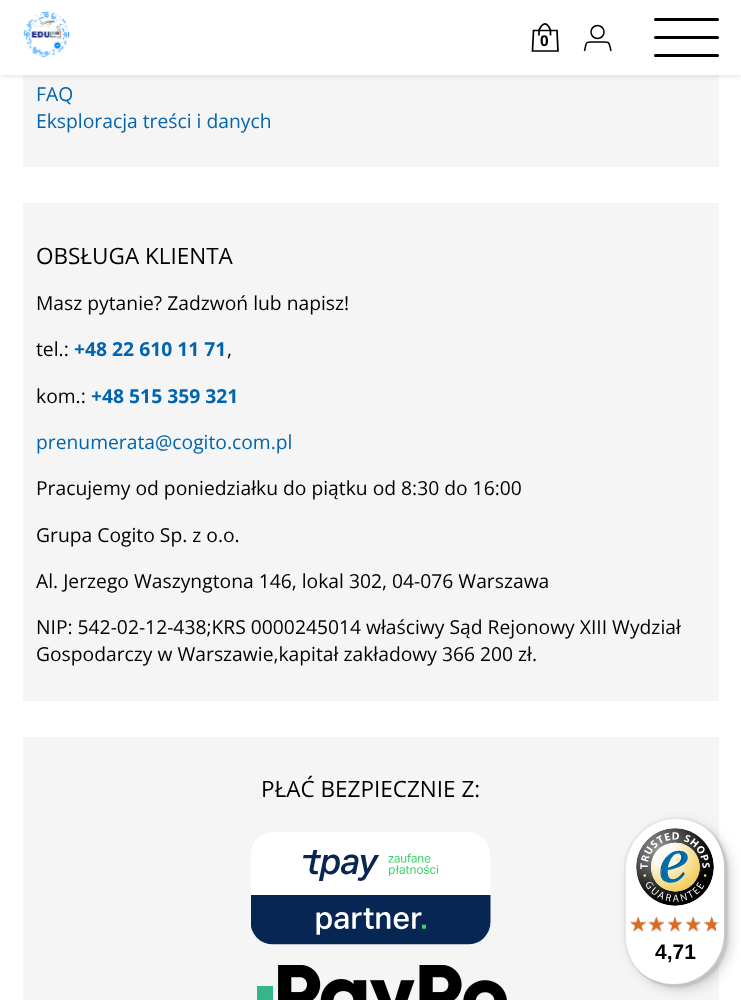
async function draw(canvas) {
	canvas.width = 741;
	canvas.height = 1000;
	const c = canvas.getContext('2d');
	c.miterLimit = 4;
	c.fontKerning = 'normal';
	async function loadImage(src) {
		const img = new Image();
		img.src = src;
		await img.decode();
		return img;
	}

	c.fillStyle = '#fff';
	c.fillRect(0, 0, 741, 1000);
	c.fillStyle = '#f5f5f5';
	c.fillRect(23, 75, 696, 92);
	c.fillStyle = '#5050503b';
	c.filter = 'blur(3px)';
	c.beginPath();
	c.rect(0, 0, 741, 75);
	c.fill();
	c.filter = 'none';
	c.fillStyle = '#fff';
	c.fillRect(0, 0, 741, 75);
	c.drawImage(await loadImage('img1.png'), 23, 11, 47, 47);
	c.beginPath();
	c.moveTo(558, 51);
	c.lineTo(532.5, 51);
	c.lineTo(533.5, 30.5);
	c.lineTo(557, 30.5);
	c.closePath();
	c.moveTo(539, 35.5);
	c.lineTo(539, 30);
	c.lineTo(541, 26.5);
	c.bezierCurveTo(545.5, 21, 548.5, 25.5, 550.5, 30);
	c.lineTo(550.5, 35.5);
	c.strokeStyle = '#000';
	c.lineWidth = 1.7;
	c.stroke();
	c.font = 'bold 15px Open Sans';
	c.fillStyle = '#000';
	c.fillText('0', 540, 46);
	c.beginPath();
	c.arc(597.5, 32, 6.5, 0, 2 * Math.PI);
	c.lineWidth = 1.5;
	c.stroke();
	c.beginPath();
	c.moveTo(611, 51);
	c.bezierCurveTo(608.5, 40, 610, 42, 597.5, 42);
	c.bezierCurveTo(585, 42, 587, 40, 584.5, 51);
	c.stroke();
	c.beginPath();
	c.roundRect(654, 18, 65, 3, 1.5);
	c.fill();
	c.beginPath();
	c.roundRect(654, 36, 65, 3, 1.5);
	c.fill();
	c.beginPath();
	c.roundRect(654, 54, 65, 3, 1.5);
	c.fill();
	c.font = '19.3px Open Sans';
	c.fillStyle = '#0364ae';
	c.fillText('FAQ', 36, 101);
	c.fillText('Eksploracja treści i danych', 36, 128);
	c.fillStyle = '#f5f5f5';
	c.fillRect(23, 203, 696, 498);
	c.font = '22.5px Open Sans';
	c.fillStyle = '#000';
	c.fillText('OBSŁUGA KLIENTA', 36, 264);
	c.font = '19.3px Open Sans';
	c.fillText('Masz pytanie? Zadzwoń lub napisz!', 36, 310);
	c.fillText('tel.:', 36, 356);
	c.font = 'bold 19.3px Open Sans';
	c.fillStyle = '#0364ae';
	c.fillText('+48 22 610 11 71', 74, 356);
	c.font = '19.3px Open Sans';
	c.fillStyle = '#000';
	c.fillText(',', 227, 356);
	c.fillText('kom.:', 36, 403);
	c.font = 'bold 19.3px Open Sans';
	c.fillStyle = '#0364ae';
	c.fillText('+48 515 359 321', 91, 403);
	c.font = '19.3px Open Sans';
	c.fillText('prenumerata@cogito.com.pl', 36, 449);
	c.fillStyle = '#000';
	for (const [text, x, y] of [
		['Pracujemy od poniedziałku do piątku od 8:30 do 16:00', 36, 495],
		['Grupa Cogito Sp. z o.o.', 36, 542],
		['Al. Jerzego Waszyngtona 146, lokal 302, 04-076 Warszawa', 36, 588],
		['NIP: 542-02-12-438;KRS 0000245014 właściwy Sąd Rejonowy XIII Wydział', 36, 634],
		['Gospodarczy w Warszawie,kapitał zakładowy 366 200 zł.', 36, 661],
	]) {
		c.fillText(text, x, y);
	}
	c.fillStyle = '#f5f5f5';
	c.fillRect(23, 737, 696, 263);
	c.font = '22.5px Open Sans';
	c.fillStyle = '#000';
	c.fillText('PŁAĆ BEZPIECZNIE Z:', 261, 797);
	c.drawImage(await loadImage('img2.png'), 251, 832, 240, 113);
	c.drawImage(await loadImage('img3.png'), 257, 965, 250, 35);
	c.fillStyle = '#00000026';
	c.filter = 'blur(6px)';
	c.beginPath();
	c.roundRect(629, 822, 102, 168, 51);
	c.fill();
	c.filter = 'none';
	c.filter = 'blur(1.5px)';
	c.beginPath();
	c.roundRect(626, 819, 102, 168, 51);
	c.fill();
	c.filter = 'none';
	c.fillStyle = '#fff';
	c.beginPath();
	c.roundRect(624, 818, 102, 168, 51);
	c.fill();
	c.fillStyle = '#0000001a';
	c.beginPath();
	c.moveTo(676, 819);
	c.bezierCurveTo(686, 819, 695, 822, 703, 826);
	c.bezierCurveTo(695, 821, 685, 818, 675, 818);
	c.bezierCurveTo(647, 818, 624, 841, 624, 869);
	c.lineTo(624, 935);
	c.bezierCurveTo(624, 953, 633, 969, 647, 978);
	c.bezierCurveTo(634, 968, 626, 953, 626, 936);
	c.lineTo(626, 870);
	c.bezierCurveTo(626, 842, 648, 819, 676, 819);
	c.closePath();
	c.fill();
	c.fillStyle = '#00000033';
	c.beginPath();
	c.moveTo(636, 968);
	c.bezierCurveTo(645, 979, 659, 986, 675, 986);
	c.bezierCurveTo(703, 986, 726, 963, 726, 935);
	c.lineTo(726, 869);
	c.bezierCurveTo(726, 856, 721, 844, 713, 835);
	c.bezierCurveTo(720, 844, 724, 855, 724, 867);
	c.lineTo(724, 933);
	c.bezierCurveTo(724, 961, 702, 984, 674, 984);
	c.bezierCurveTo(659, 984, 645, 978, 636, 968);
	c.closePath();
	c.fill();
	c.fillStyle = '#32323233';
	c.beginPath();
	c.moveTo(636, 968);
	c.bezierCurveTo(646, 979, 660, 986, 675, 986);
	c.bezierCurveTo(703, 986, 726, 963, 726, 935);
	c.lineTo(726, 869);
	c.bezierCurveTo(726, 857, 722, 846, 715, 837);
	c.bezierCurveTo(721, 846, 725, 856, 725, 868);
	c.lineTo(725, 934);
	c.bezierCurveTo(725, 962, 702, 985, 674, 985);
	c.bezierCurveTo(659, 985, 646, 979, 636, 968);
	c.closePath();
	c.fill();
	c.fillStyle = '#ffffff4d';
	c.beginPath();
	c.moveTo(636, 968);
	c.bezierCurveTo(646, 979, 660, 986, 675, 986);
	c.bezierCurveTo(703, 986, 726, 963, 726, 935);
	c.lineTo(726, 869);
	c.bezierCurveTo(726, 854, 719, 840, 708, 830);
	c.bezierCurveTo(719, 840, 725, 853, 725, 868);
	c.lineTo(725, 934);
	c.bezierCurveTo(725, 962, 702, 985, 674, 985);
	c.bezierCurveTo(659, 985, 646, 979, 636, 968);
	c.closePath();
	c.fill();
	c.drawImage(await loadImage('img4.png'), 636, 828, 78, 78);
	c.drawImage(await loadImage('img5.png'), 630, 917, 16, 14);
	c.drawImage(await loadImage('img6.png'), 650, 917, 14, 15);
	c.drawImage(await loadImage('img7.png'), 668, 917, 14, 14);
	c.drawImage(await loadImage('img8.png'), 686, 916, 16, 16);
	c.drawImage(await loadImage('img9.png'), 704, 917, 16, 14);
	c.drawImage(await loadImage('img10.png'), 630, 916, 16, 16);
	c.drawImage(await loadImage('img11.png'), 648, 916, 16, 16);
	c.drawImage(await loadImage('img12.png'), 668, 916, 14, 16);
	c.drawImage(await loadImage('img13.png'), 686, 916, 14, 16);
	c.drawImage(await loadImage('img14.png'), 704, 916, 12, 16);
	c.font = 'bold 21px Liberation Sans';
	c.fillStyle = '#000';
	c.fillText('4,71', 655, 959);
}

draw(document.querySelector('canvas'));
